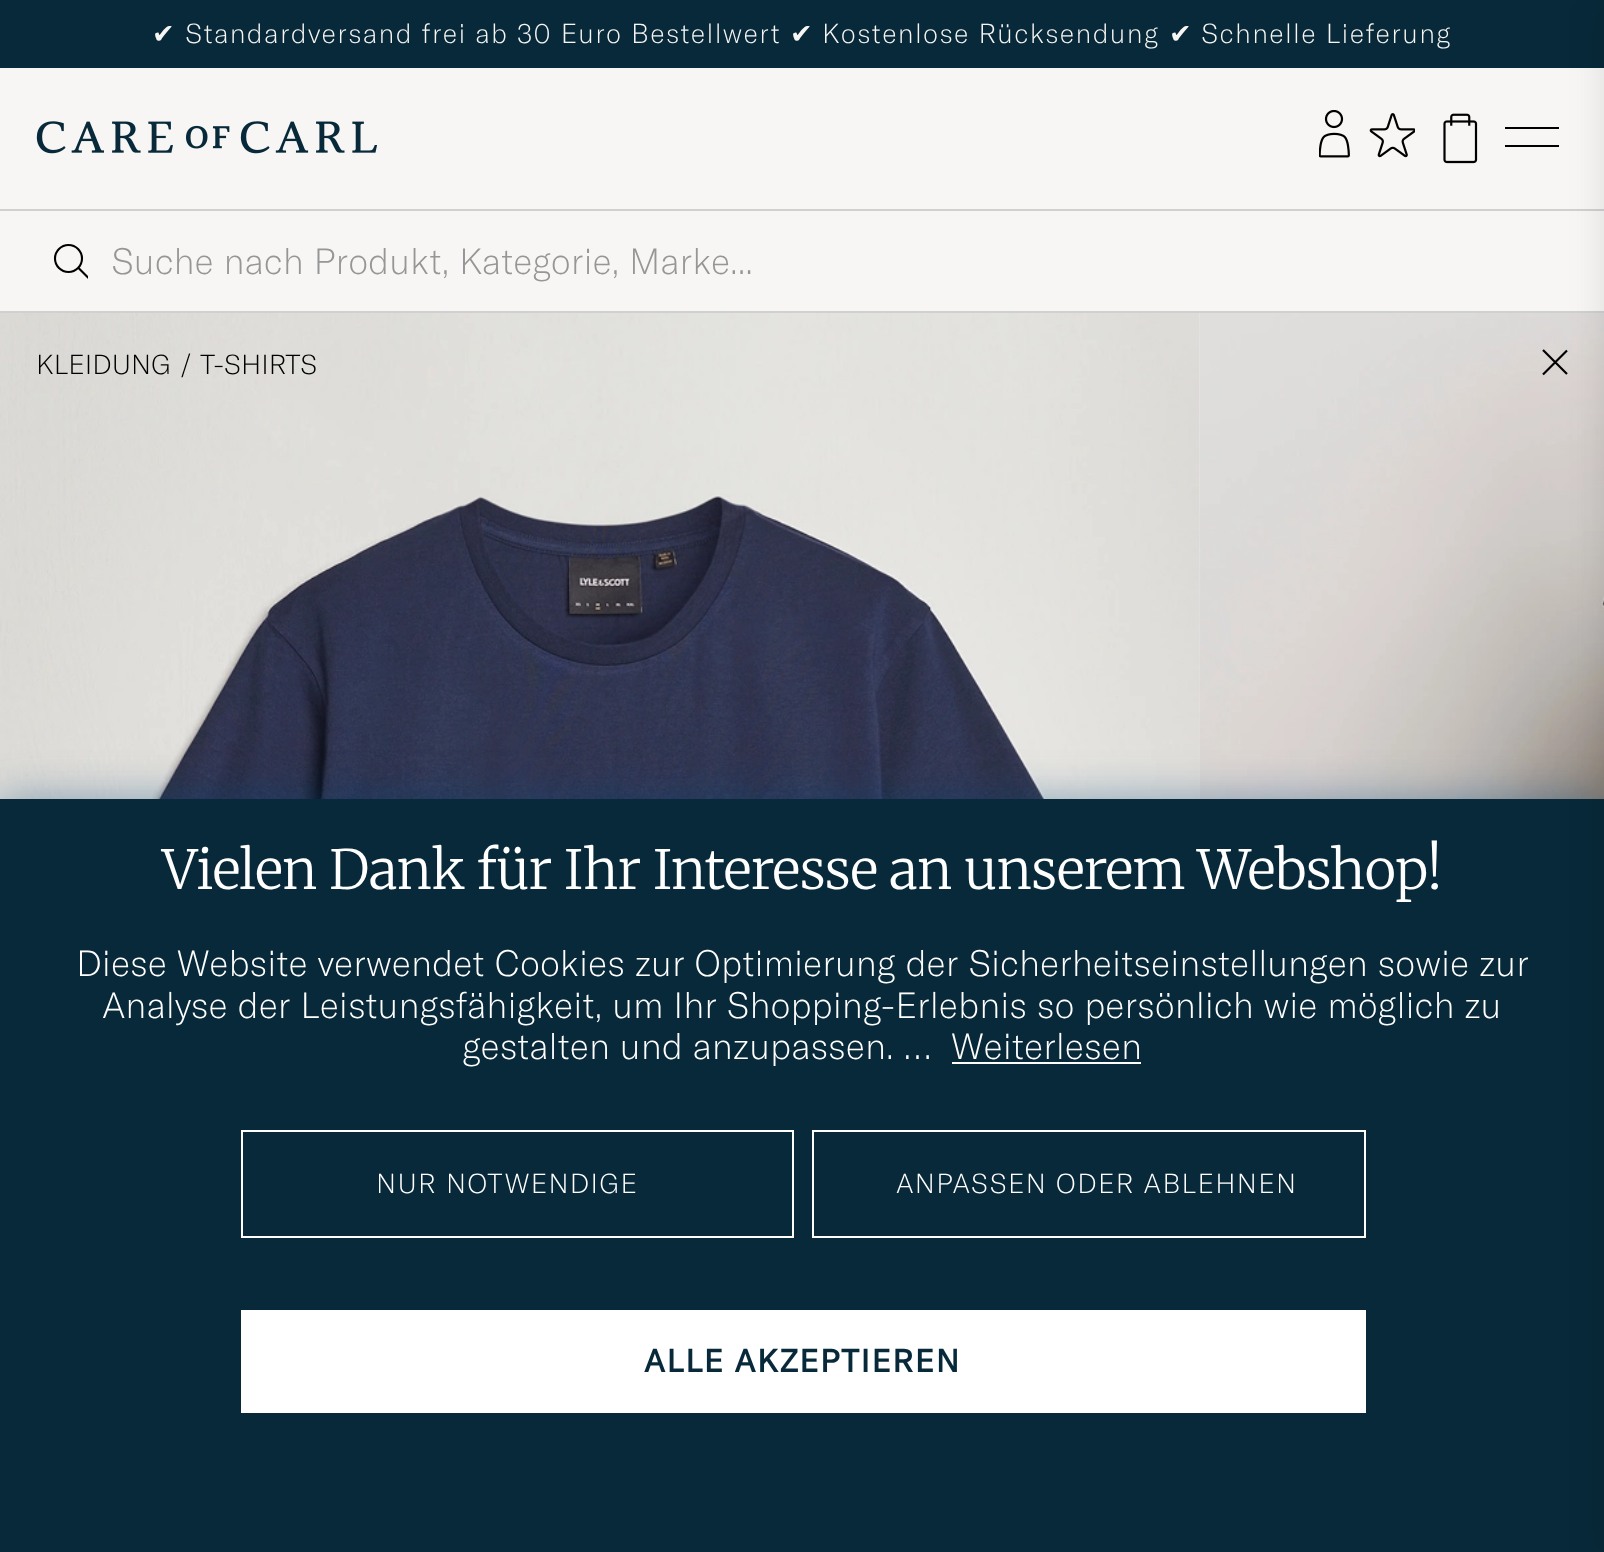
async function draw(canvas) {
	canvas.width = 1604;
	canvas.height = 1552;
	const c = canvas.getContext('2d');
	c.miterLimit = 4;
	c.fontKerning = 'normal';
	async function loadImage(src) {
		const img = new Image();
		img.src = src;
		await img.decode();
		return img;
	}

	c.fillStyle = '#f7f6f4';
	c.fillRect(0, 0, 1604, 1552);
	c.fillStyle = '#082939';
	c.fillRect(0, 0, 1604, 68);
	c.letterSpacing = '1.35px';
	c.font = '27px DejaVu Sans';
	c.fillStyle = '#f7f6f4';
	c.fillText('✔', 152, 43);
	c.font = '300 27px GT America';
	c.fillText('Standardversand frei ab 30 Euro Bestellwert', 185, 43);
	c.font = '27px DejaVu Sans';
	c.fillText('✔', 790, 43);
	c.font = '300 27px GT America';
	c.fillText('Kostenlose Rücksendung', 822, 43);
	c.font = '27px DejaVu Sans';
	c.fillText('✔', 1169, 43);
	c.font = '300 27px GT America';
	c.fillText('Schnelle Lieferung', 1201, 43);
	for (const [x, y, w, h, color] of [
		[0, 311, 1604, 2, '#d0d0d0'],
		[1505, 127, 54, 2, '#000'],
		[1505, 145, 54, 2, '#000'],
		[0, 209, 1604, 2, '#d0d0d0'],
	]) {
		c.fillStyle = color;
		c.fillRect(x, y, w, h);
	}
	c.drawImage(await loadImage('img5.png'), 0, 313, 1200, 486);
	c.drawImage(await loadImage('img6.png'), 1199, 313, 405, 486);
	c.beginPath();
	c.moveTo(1543, 374.5);
	c.lineTo(1567, 350.5);
	c.moveTo(1543, 350);
	c.lineTo(1567, 374);
	c.strokeStyle = '#000';
	c.lineWidth = 2.2;
	c.stroke();
	c.fillStyle = '#00427a70';
	c.filter = 'blur(22.5px)';
	c.beginPath();
	c.rect(0, 801, 1604, 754);
	c.fill();
	c.filter = 'none';
	c.fillStyle = '#082939';
	c.fillRect(0, 799, 1604, 753);
	c.fillStyle = '#0000001a';
	c.filter = 'blur(18px)';
	c.beginPath();
	c.roundRect(1604, 5, 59, 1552, 5);
	c.fill();
	c.filter = 'none';
	c.drawImage(await loadImage('img1.png'), 36, 121, 341, 33);
	c.drawImage(await loadImage('img2.png'), 1319, 110, 31, 48);
	c.drawImage(await loadImage('img3.png'), 1369, 113, 46, 45);
	c.drawImage(await loadImage('img4.png'), 1443, 113, 35, 51);
	c.beginPath();
	c.arc(68.5, 258.5, 13.5, 0, 2 * Math.PI);
	c.lineWidth = 2.1;
	c.stroke();
	c.save();
	c.beginPath();
	c.rect(54, 243, 34, 36);
	c.clip();
	c.beginPath();
	c.moveTo(78.5, 268);
	c.lineTo(88.5, 278);
	c.stroke();
	c.restore();
	c.letterSpacing = '0px';
	c.font = '300 36px GT America';
	c.fillStyle = '#969696';
	c.fillText('Suche nach Produkt, Kategorie, Marke...', 111, 274);
	c.font = '300 27px GT America';
	c.fillStyle = '#000';
	for (const [text, x, y] of [
		['KLEIDUNG', 36, 374],
		['/', 180, 374],
		['T-SHIRTS', 200, 374],
	]) {
		c.fillText(text, x, y);
	}
	c.letterSpacing = '-0.55px';
	c.font = '300 54px Merriweather';
	c.fillStyle = '#fff';
	c.fillText('Vielen Dank für Ihr Interesse an unserem Webshop!', 162, 889);
	c.letterSpacing = '0px';
	c.font = '300 36px GT America';
	for (const [text, x, y] of [
		['Diese Website verwendet Cookies zur Optimierung der Sicherheitseinstellungen sowie zur', 76, 976],
		['Analyse der Leistungsfähigkeit, um Ihr Shopping-Erlebnis so persönlich wie möglich zu', 102, 1018],
		['gestalten und anzupassen. …', 462, 1059],
		['Weiterlesen', 951, 1059],
	]) {
		c.fillText(text, x, y);
	}
	c.fillRect(952, 1062, 189, 2);
	c.strokeStyle = '#fff';
	c.lineWidth = 2;
	c.strokeRect(242, 1131, 551, 106);
	c.letterSpacing = '1.35px';
	c.font = '300 27px GT America';
	c.fillText('NUR NOTWENDIGE', 376, 1193);
	c.strokeRect(813, 1131, 552, 106);
	c.fillText('ANPASSEN ODER ABLEHNEN', 896, 1193);
	c.fillRect(241, 1310, 1125, 103);
	c.letterSpacing = '1.6px';
	c.font = 'bold 31.5px GT America';
	c.fillStyle = '#082939';
	c.fillText('ALLE AKZEPTIEREN', 644, 1372);
}

draw(document.querySelector('canvas'));
